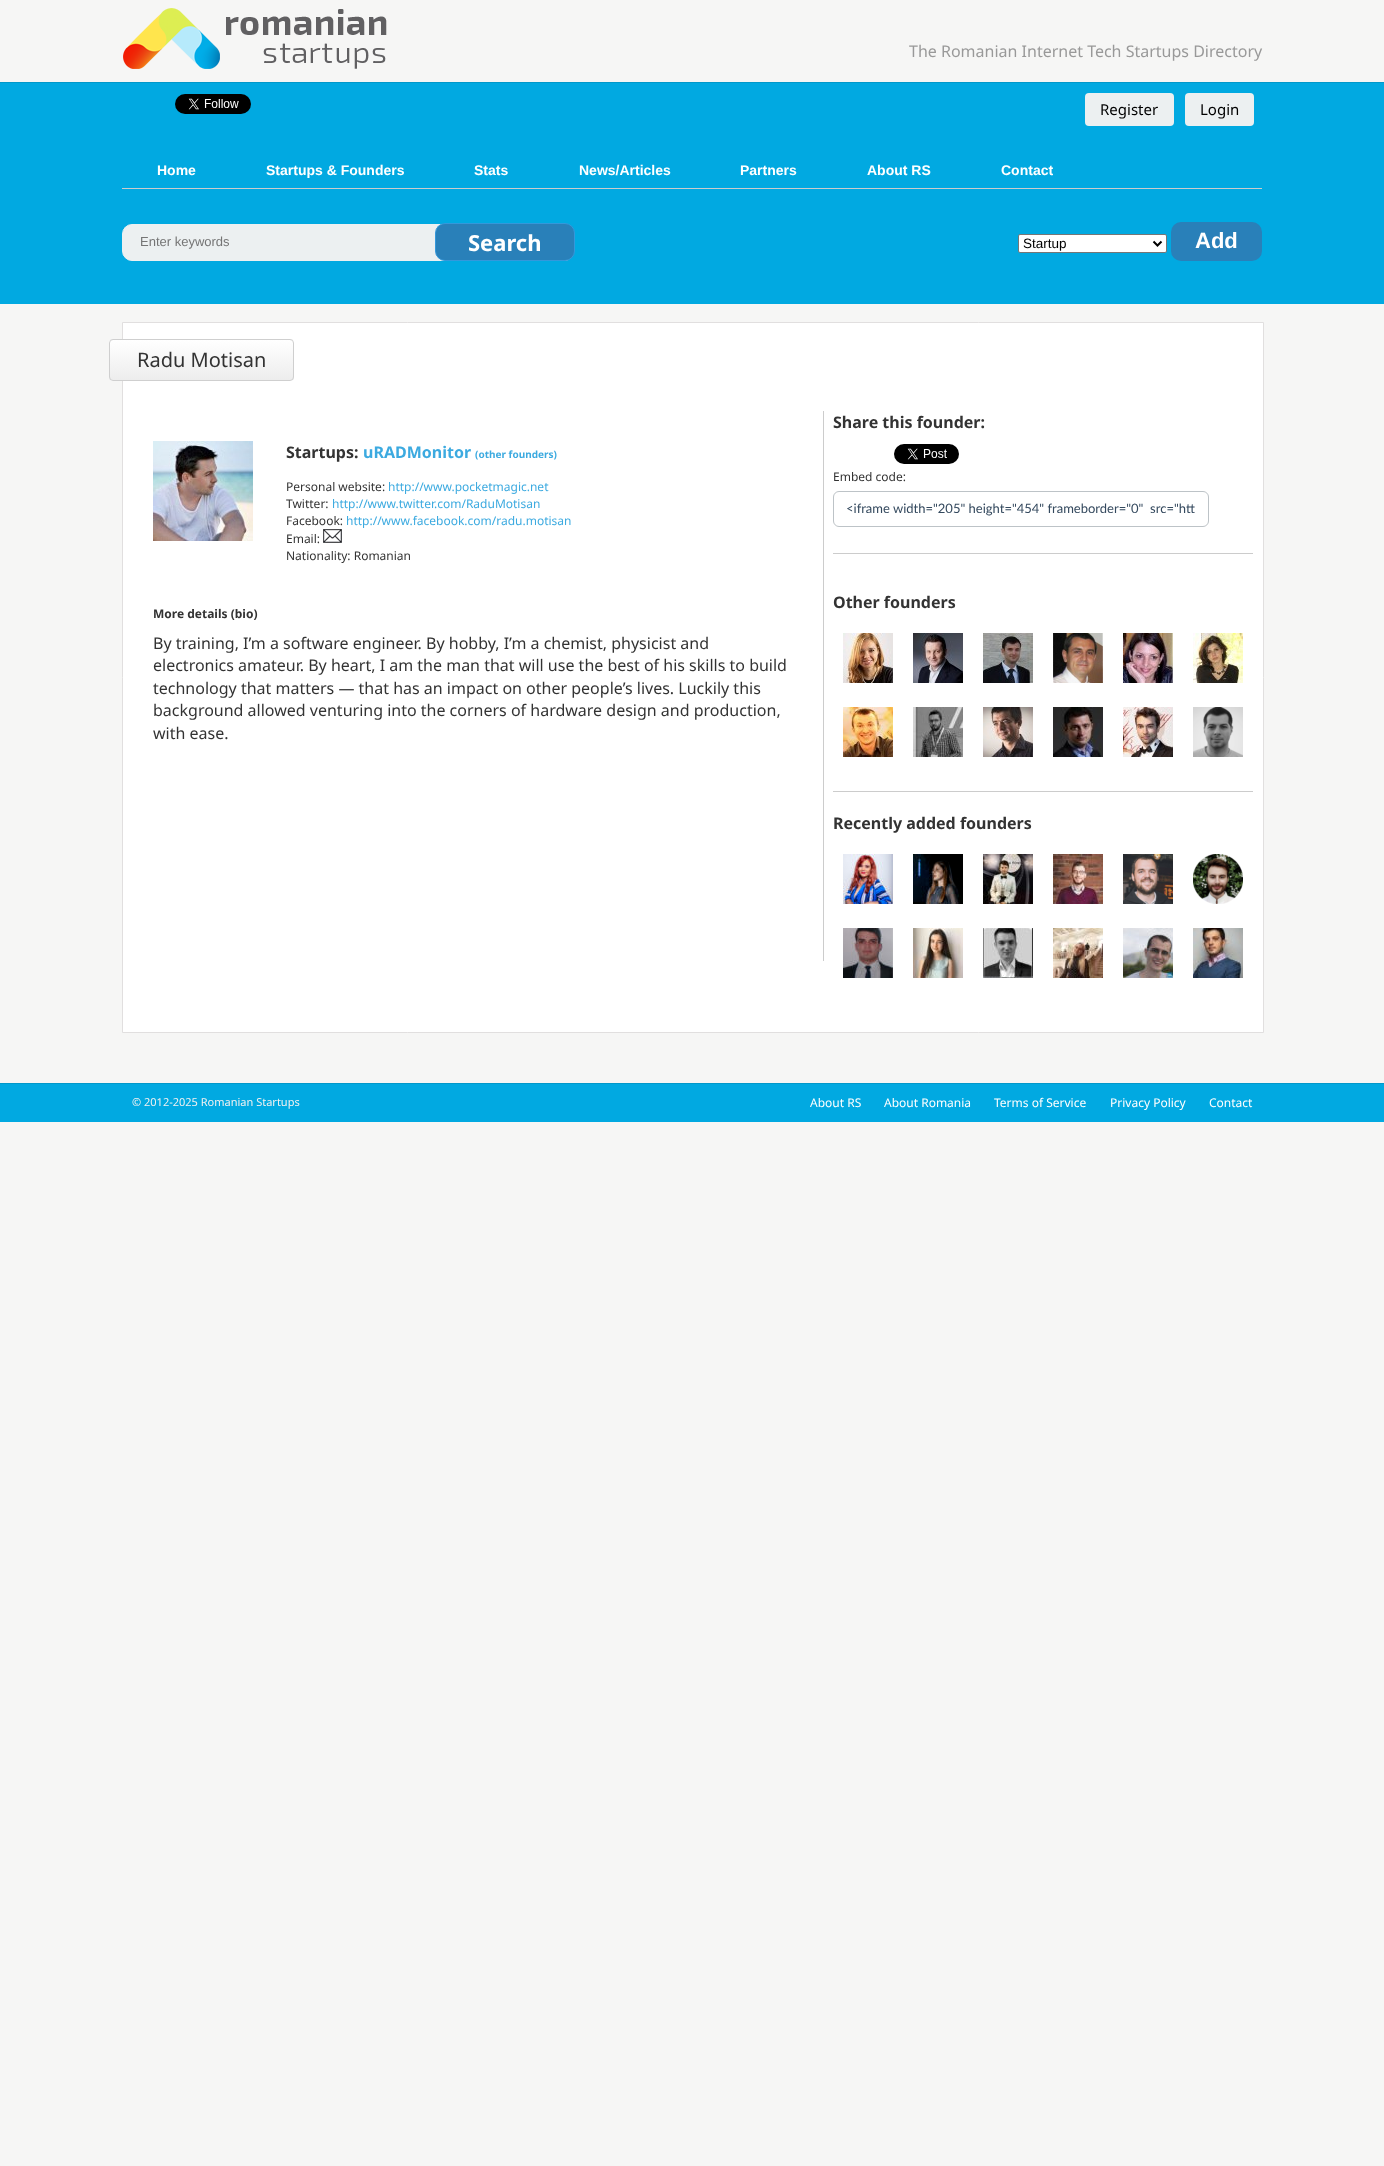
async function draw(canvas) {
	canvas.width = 1384;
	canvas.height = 2166;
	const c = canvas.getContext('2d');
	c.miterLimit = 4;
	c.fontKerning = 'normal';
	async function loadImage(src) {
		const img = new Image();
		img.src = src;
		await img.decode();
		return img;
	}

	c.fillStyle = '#f6f6f5';
	c.fillRect(0, 0, 1384, 2166);
	c.drawImage(await loadImage('img1.png'), 123, 8, 264, 61);
	c.font = '16px Noto Sans';
	c.fillStyle = '#999';
	c.fillText('The Romanian Internet Tech Startups Directory', 909, 57);
	c.fillStyle = '#01a9e1';
	c.fillRect(0, 83, 1384, 221);
	c.fillStyle = '#0198ca';
	c.fillRect(0, 82, 1384, 1);
	c.drawImage(await loadImage('img2.png'), 175, 94, 76, 20);
	c.fillStyle = '#ecf0f1';
	c.beginPath();
	c.roundRect(1085, 93, 89, 33, 4);
	c.fill();
	c.font = '15px Noto Sans';
	c.fillStyle = '#000';
	c.fillText('Register', 1100, 115);
	c.fillStyle = '#ecf0f1';
	c.beginPath();
	c.roundRect(1185, 93, 69, 33, 4);
	c.fill();
	c.fillStyle = '#000';
	c.fillText('Login', 1200, 115);
	c.fillStyle = '#ccc';
	c.fillRect(122, 188, 1140, 1);
	c.font = 'bold 14px Liberation Sans';
	c.fillStyle = '#fff';
	for (const [text, x, y] of [
		['Home', 157, 175],
		['Startups & Founders', 266, 175],
		['Stats', 474, 175],
		['News/Articles', 579, 175],
		['Partners', 740, 175],
		['About RS', 867, 175],
		['Contact', 1001, 175],
	]) {
		c.fillText(text, x, y);
	}
	c.fillStyle = '#ecf0f1';
	c.beginPath();
	c.roundRect(122.5, 224.5, 451, 36, 9.5);
	c.fill();
	c.strokeStyle = '#ecf0f1';
	c.stroke();
	c.font = '13px Liberation Sans';
	c.fillStyle = '#757575';
	c.fillText('Enter keywords', 140, 246);
	c.fillStyle = '#2980b9';
	c.beginPath();
	c.roundRect(435.5, 223.5, 139, 37, 9.5);
	c.fill();
	c.strokeStyle = '#3498db';
	c.stroke();
	c.font = 'bold 22px Noto Sans';
	c.fillStyle = '#fff';
	c.fillText('Search', 468, 251);
	c.beginPath();
	c.roundRect(1018.5, 234.5, 148, 18, 1.5);
	c.fill();
	c.strokeStyle = '#767676';
	c.stroke();
	c.beginPath();
	c.moveTo(1153.5, 241.5);
	c.lineTo(1157.5, 245.5);
	c.lineTo(1161.5, 241.5);
	c.strokeStyle = '#000';
	c.lineWidth = 2;
	c.stroke();
	c.font = '13.5px Liberation Sans';
	c.fillStyle = '#000';
	c.fillText('Startup', 1023, 248);
	c.fillStyle = '#2980b9';
	c.beginPath();
	c.roundRect(1171, 222, 91, 39, 10);
	c.fill();
	c.font = 'bold 22px Liberation Sans';
	c.fillStyle = '#fff';
	c.fillText('Add', 1195, 248);
	c.beginPath();
	c.rect(122.5, 322.5, 1141, 710);
	c.fill();
	c.strokeStyle = '#e1dfdf';
	c.lineWidth = 1;
	c.stroke();
	c.drawImage(await loadImage('img3.png'), 109, 339, 185, 42);
	c.beginPath();
	c.roundRect(109.5, 339.5, 184, 41, 3.5);
	c.strokeStyle = '#cfcfcf';
	c.stroke();
	c.font = '20px Noto Sans';
	c.fillStyle = '#333';
	c.fillText('Radu Motisan', 137, 367);
	c.fillStyle = '#ccc';
	c.fillRect(823, 411, 1, 550);
	c.drawImage(await loadImage('img4.png'), 153, 441, 100, 100);
	c.font = 'bold 16px Noto Sans';
	c.fillStyle = '#333';
	c.fillText('Startups:', 286, 458);
	c.fillStyle = '#3caae0';
	c.fillText('uRADMonitor', 363, 458);
	c.font = 'bold 10px Noto Sans';
	c.fillText('(other founders)', 475, 458);
	c.font = '12px Noto Sans';
	c.fillStyle = '#333';
	c.fillText('Personal website:', 286, 491);
	c.fillStyle = '#3caae0';
	c.fillText('http://www.pocketmagic.net', 388, 491);
	c.fillStyle = '#333';
	c.fillText('Twitter:', 286, 508);
	c.fillStyle = '#3caae0';
	c.fillText('http://www.twitter.com/RaduMotisan', 332, 508);
	c.fillStyle = '#333';
	c.fillText('Facebook:', 286, 525);
	c.fillStyle = '#3caae0';
	c.fillText('http://www.facebook.com/radu.motisan', 346, 525);
	c.fillStyle = '#333';
	c.fillText('Email:', 286, 543);
	c.drawImage(await loadImage('img5.png'), 323, 529, 19, 14);
	c.fillText('Nationality: Romanian', 286, 560);
	c.font = 'bold 12px Noto Sans';
	c.fillText('More details (bio)', 153, 618);
	c.font = '16px Noto Sans';
	for (const [text, x, y] of [
		['By training, I’m a software engineer. By hobby, I’m a chemist, physicist and', 153, 649],
		['electronics amateur. By heart, I am the man that will use the best of his skills to build', 153, 671],
		['technology that matters — that has an impact on other people’s lives. Luckily this', 153, 694],
		['background allowed venturing into the corners of hardware design and production,', 153, 716],
		['with ease.', 153, 739],
	]) {
		c.fillText(text, x, y);
	}
	c.fillStyle = '#ccc';
	c.fillRect(833, 553, 420, 1);
	c.font = 'bold 16px Noto Sans';
	c.fillStyle = '#333';
	c.fillText('Share this founder:', 833, 428);
	c.drawImage(await loadImage('img6.png'), 894, 444, 65, 20);
	c.font = '12px Noto Sans';
	c.fillText('Embed code:', 833, 481);
	c.beginPath();
	c.roundRect(833.5, 491.5, 375, 35, 5.5);
	c.strokeStyle = '#bdc3c7';
	c.stroke();
	c.font = '13px Lato';
	c.fillStyle = '#34495e';
	c.fillText('<iframe width="205" height="454" frameborder="0"  src="htt', 846, 513);
	c.fillStyle = '#ccc';
	c.fillRect(833, 791, 420, 1);
	c.font = 'bold 16px Noto Sans';
	c.fillStyle = '#333';
	c.fillText('Other founders', 833, 608);
	c.drawImage(await loadImage('img7.png'), 843, 633, 50, 50);
	c.drawImage(await loadImage('img8.png'), 913, 633, 50, 50);
	c.drawImage(await loadImage('img9.png'), 983, 633, 50, 50);
	c.drawImage(await loadImage('img10.png'), 1053, 633, 50, 50);
	c.drawImage(await loadImage('img11.png'), 1123, 633, 50, 50);
	c.drawImage(await loadImage('img12.png'), 1193, 633, 50, 50);
	c.drawImage(await loadImage('img13.png'), 843, 707, 50, 50);
	c.drawImage(await loadImage('img14.png'), 913, 707, 50, 50);
	c.drawImage(await loadImage('img15.png'), 983, 707, 50, 50);
	c.drawImage(await loadImage('img16.png'), 1053, 707, 50, 50);
	c.drawImage(await loadImage('img17.png'), 1123, 707, 50, 50);
	c.drawImage(await loadImage('img18.png'), 1193, 707, 50, 50);
	c.fillText('Recently added founders', 833, 829);
	c.drawImage(await loadImage('img19.png'), 843, 854, 50, 50);
	c.drawImage(await loadImage('img20.png'), 913, 854, 50, 50);
	c.drawImage(await loadImage('img21.png'), 983, 854, 50, 50);
	c.drawImage(await loadImage('img22.png'), 1053, 854, 50, 50);
	c.drawImage(await loadImage('img23.png'), 1123, 854, 50, 50);
	c.drawImage(await loadImage('img24.png'), 1193, 854, 50, 50);
	c.drawImage(await loadImage('img25.png'), 843, 928, 50, 50);
	c.drawImage(await loadImage('img26.png'), 913, 928, 50, 50);
	c.drawImage(await loadImage('img27.png'), 983, 928, 50, 50);
	c.drawImage(await loadImage('img28.png'), 1053, 928, 50, 50);
	c.drawImage(await loadImage('img29.png'), 1123, 928, 50, 50);
	c.drawImage(await loadImage('img30.png'), 1193, 928, 50, 50);
	c.fillStyle = '#01a9e1';
	c.fillRect(0, 1084, 1384, 38);
	c.fillStyle = '#0198ca';
	c.fillRect(0, 1083, 1384, 1);
	c.font = '11px Noto Sans';
	c.fillStyle = '#f3f1f1';
	c.fillText('© 2012-2025 Romanian Startups', 132, 1106);
	c.font = '12px Noto Sans';
	c.fillStyle = '#fff';
	for (const [text, x, y] of [
		['About RS', 810, 1107],
		['About Romania', 884, 1107],
		['Terms of Service', 994, 1107],
		['Privacy Policy', 1110, 1107],
		['Contact', 1209, 1107],
	]) {
		c.fillText(text, x, y);
	}
}

draw(document.querySelector('canvas'));
